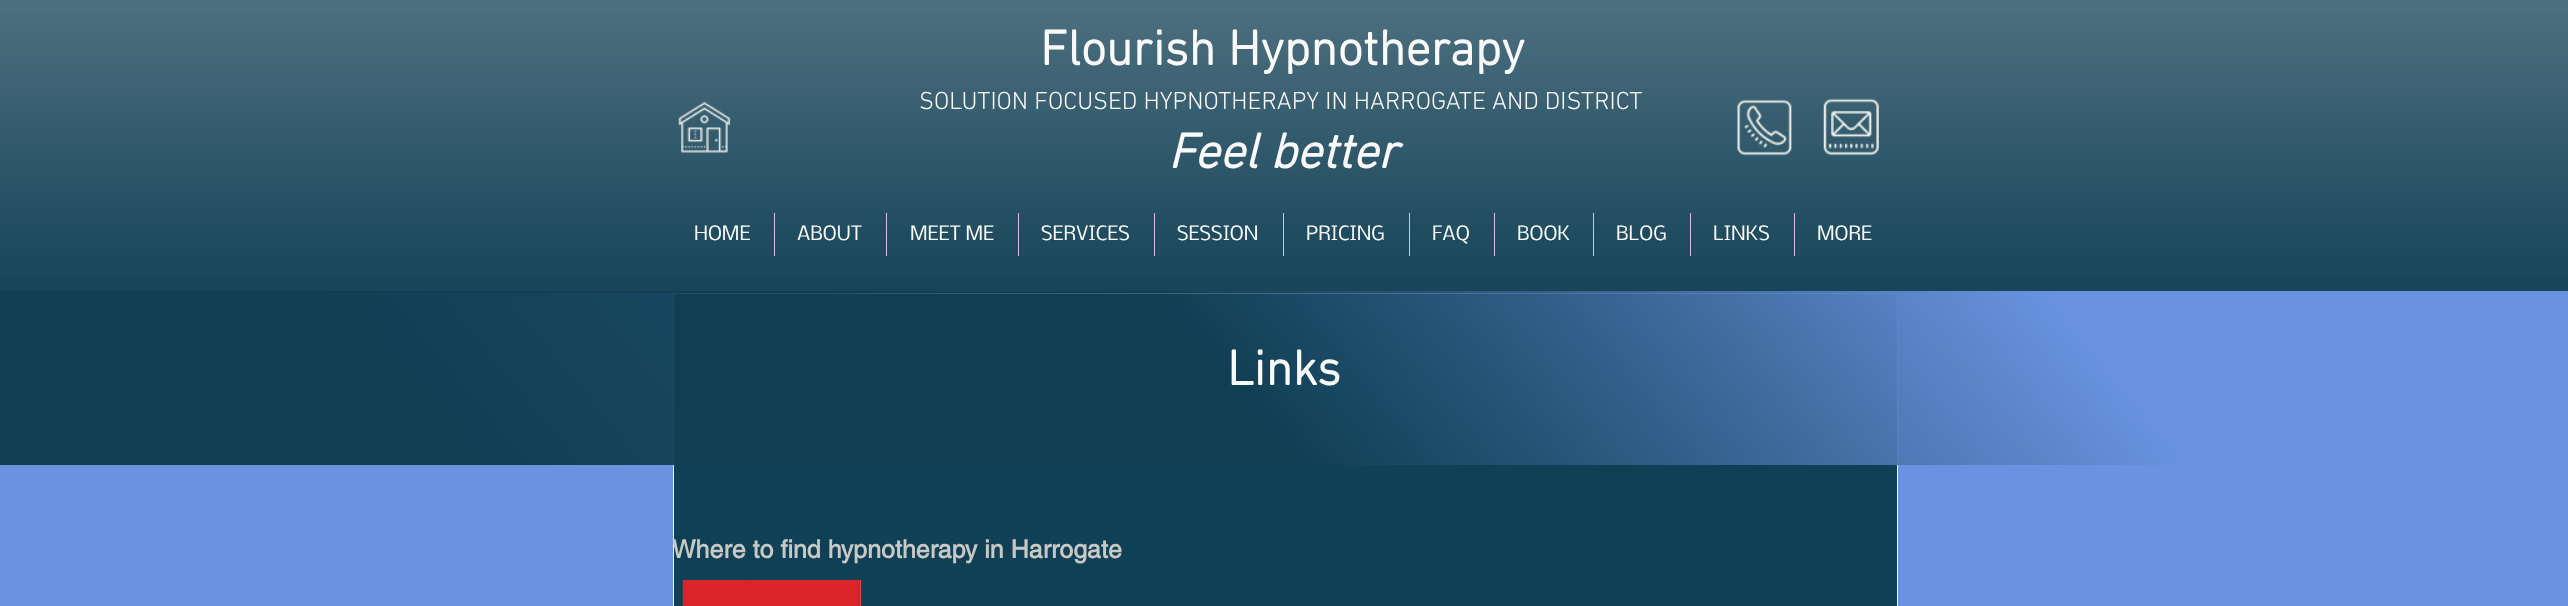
async function draw(canvas) {
	canvas.width = 2568;
	canvas.height = 606;
	const c = canvas.getContext('2d');
	c.miterLimit = 4;
	c.fontKerning = 'normal';
	async function loadImage(src) {
		const img = new Image();
		img.src = src;
		await img.decode();
		return img;
	}
	let gradient;

	c.fillStyle = '#6993e0';
	c.fillRect(0, 0, 2568, 606);
	c.fillStyle = '#103f54';
	c.fillRect(0, 0, 2568, 293);
	c.drawImage(await loadImage('img1.png'), 0, 0, 2568, 292);
	c.font = 'bold 50px "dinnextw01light"';
	c.fillStyle = '#fafafa';
	c.fillText('Flourish Hypnotherapy', 1040, 65);
	c.drawImage(await loadImage('img2.png'), 678, 101, 53, 52);
	c.font = '300 25px "dinnextw01light"';
	c.fillText('SOLUTION FOCUSED HYPNOTHERAPY IN HARROGATE AND DISTRICT', 919, 109);
	c.drawImage(await loadImage('img3.png'), 1737, 99, 55, 57);
	c.drawImage(await loadImage('img4.png'), 1823, 98, 56, 58);
	c.font = 'italic bold 50px "dinnextw01light"';
	c.fillText('Feel better', 1168, 168);
	c.font = '18.75px Nobile';
	c.fillText('HOME', 694, 240);
	c.fillStyle = '#d8bde2';
	c.fillRect(774, 213, 1, 43);
	c.fillStyle = '#fafafa';
	c.fillText('ABOUT', 797, 240);
	c.fillStyle = '#d8bde2';
	c.fillRect(886, 213, 1, 43);
	c.fillStyle = '#fafafa';
	c.fillText('MEET ME', 910, 240);
	c.fillStyle = '#d8bde2';
	c.fillRect(1018, 213, 1, 43);
	c.fillStyle = '#fafafa';
	c.fillText('SERVICES', 1041, 240);
	c.fillStyle = '#d8bde2';
	c.fillRect(1154, 213, 1, 43);
	c.fillStyle = '#fafafa';
	c.fillText('SESSION', 1177, 240);
	c.fillStyle = '#d8bde2';
	c.fillRect(1283, 213, 1, 43);
	c.fillStyle = '#fafafa';
	c.fillText('PRICING', 1306, 240);
	c.fillStyle = '#d8bde2';
	c.fillRect(1409, 213, 1, 43);
	c.fillStyle = '#fafafa';
	c.fillText('FAQ', 1432, 240);
	c.fillStyle = '#d8bde2';
	c.fillRect(1494, 213, 1, 43);
	c.fillStyle = '#fafafa';
	c.fillText('BOOK', 1517, 240);
	c.fillStyle = '#d8bde2';
	c.fillRect(1593, 213, 1, 43);
	c.fillStyle = '#fafafa';
	c.fillText('BLOG', 1616, 240);
	c.fillStyle = '#d8bde2';
	c.fillRect(1690, 213, 1, 43);
	c.fillStyle = '#fafafa';
	c.fillText('LINKS', 1713, 240);
	c.fillStyle = '#d8bde2';
	c.fillRect(1794, 213, 1, 43);
	c.fillStyle = '#fafafa';
	c.fillText('MORE', 1817, 240);
	c.fillStyle = '#104056';
	c.beginPath();
	c.rect(673.5, 293.5, 1224, 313);
	c.fill();
	c.strokeStyle = '#f1f3ee';
	c.stroke();
	gradient = c.createLinearGradient(477, 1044, 2092, -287);
	gradient.addColorStop(0.17, '#103f54');
	gradient.addColorStop(0.48, '#103f54cc');
	gradient.addColorStop(0.81, '#6993e0');
	c.fillStyle = gradient;
	c.fillRect(0, 291, 2568, 174);
	c.font = 'bold 50px "dinnextw01light"';
	c.fillStyle = '#fafafa';
	c.fillText('Links', 1227, 385);
	c.font = 'bold 25px helvetica';
	c.fillStyle = '#c8c9c5';
	c.fillText('Where to find hypnotherapy in Harrogate', 672, 558);
	c.drawImage(await loadImage('img5.png'), 682, 580, 180, 26);
}

draw(document.querySelector('canvas'));
